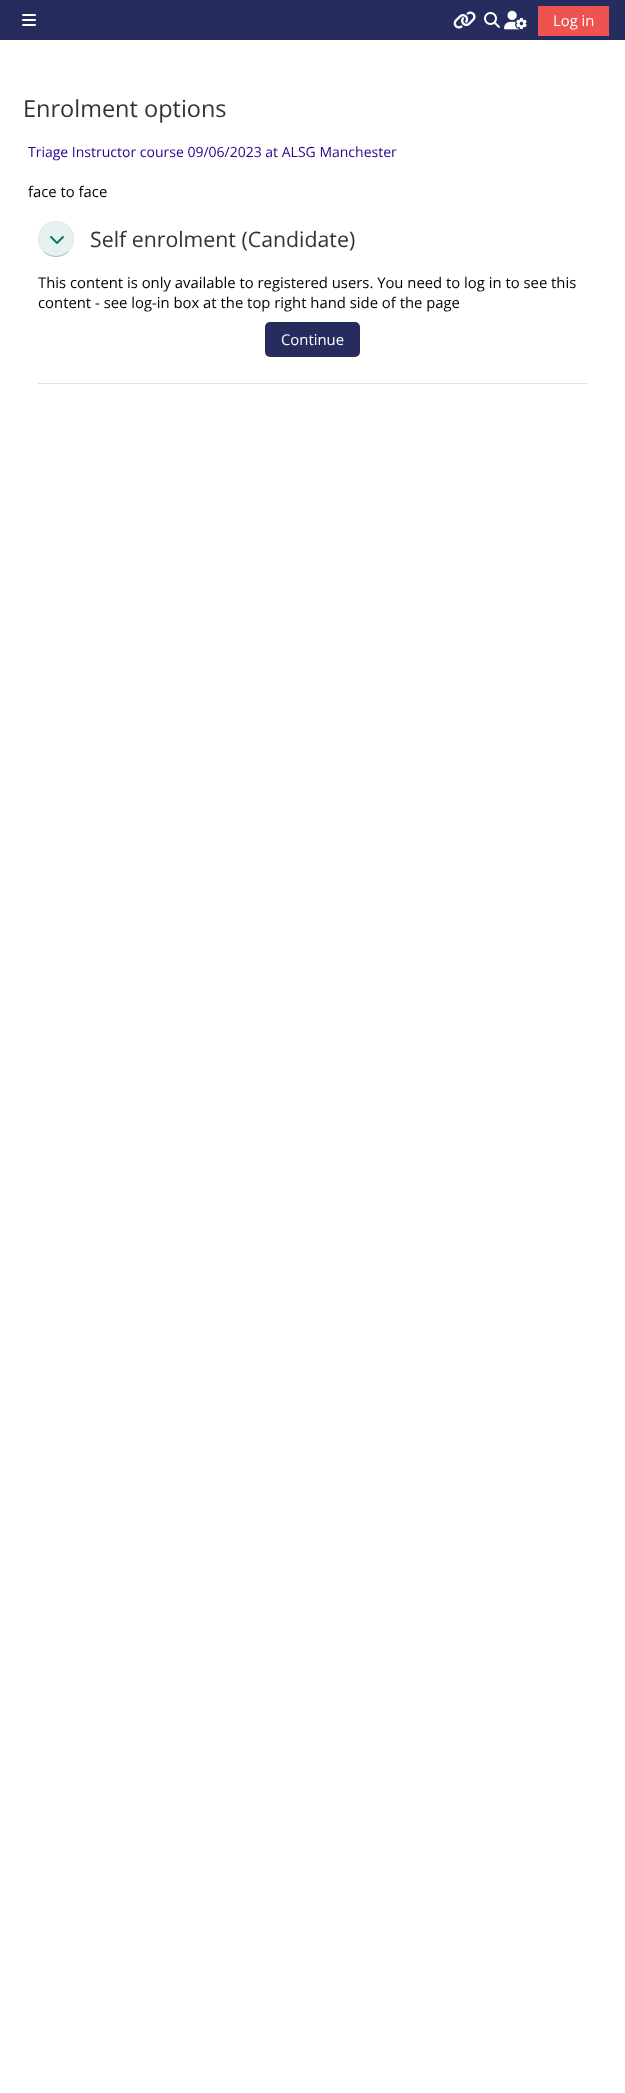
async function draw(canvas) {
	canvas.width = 625;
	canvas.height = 2093;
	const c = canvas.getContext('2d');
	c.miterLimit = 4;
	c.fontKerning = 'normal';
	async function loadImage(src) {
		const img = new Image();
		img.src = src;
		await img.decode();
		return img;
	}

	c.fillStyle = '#fff';
	c.fillRect(0, 0, 625, 2093);
	c.fillStyle = '#272c5f';
	c.fillRect(0, 0, 625, 40);
	c.drawImage(await loadImage('img1.png'), 22, 14, 14, 12);
	c.drawImage(await loadImage('img2.png'), 453, 11, 23, 18);
	c.drawImage(await loadImage('img3.png'), 484, 12, 16, 16);
	c.drawImage(await loadImage('img4.png'), 504, 10, 23, 20);
	c.fillStyle = '#ef5350';
	c.fillRect(538, 6, 71, 30);
	c.font = '14.85px Open Sans';
	c.fillStyle = '#fff';
	c.fillText('Log in', 553, 26);
	c.font = '23.5px Open Sans';
	c.fillStyle = '#333';
	c.fillText('Enrolment options', 23, 117);
	c.font = '14px Open Sans';
	c.fillStyle = '#2a008c';
	c.fillText('Triage Instructor course 09/06/2023 at ALSG Manchester', 28, 157);
	c.font = '14.85px Open Sans';
	c.fillStyle = '#000';
	c.fillText('face to face', 28, 197);
	c.fillStyle = '#dee2e6';
	c.fillRect(38, 383, 549, 1);
	c.fillStyle = '#e6f2f0';
	c.beginPath();
	c.arc(56, 239, 18, 0, 2 * Math.PI);
	c.fill();
	c.beginPath();
	c.moveTo(68.5, 251.5);
	c.bezierCurveTo(61.5, 258, 50.5, 258, 43.5, 251.5);
	c.strokeStyle = '#b3b3b3';
	c.stroke();
	c.beginPath();
	c.moveTo(43.5, 251.5);
	c.bezierCurveTo(39.5, 247.5, 37.5, 241.5, 39, 235.5);
	c.bezierCurveTo(43, 215, 73.5, 218, 73.5, 239);
	c.bezierCurveTo(73.5, 243.5, 71.5, 248, 68.5, 251.5);
	c.strokeStyle = '#e6e6e6';
	c.stroke();
	c.drawImage(await loadImage('img5.png'), 50, 236, 14, 8);
	c.font = '21.3px Open Sans';
	c.fillStyle = '#333';
	c.fillText('Self enrolment (Candidate)', 90, 247);
	c.font = '14.85px Open Sans';
	c.fillStyle = '#000';
	c.fillText('This content is only available to registered users. You need to log in to see this', 38, 288);
	c.fillText('content - see log-in box at the top right hand side of the page', 38, 308);
	c.fillStyle = '#272c5f';
	c.beginPath();
	c.roundRect(265, 322, 95, 35, 5);
	c.fill();
	c.fillStyle = '#fff';
	c.fillText('Continue', 281, 345);
}

draw(document.querySelector('canvas'));
